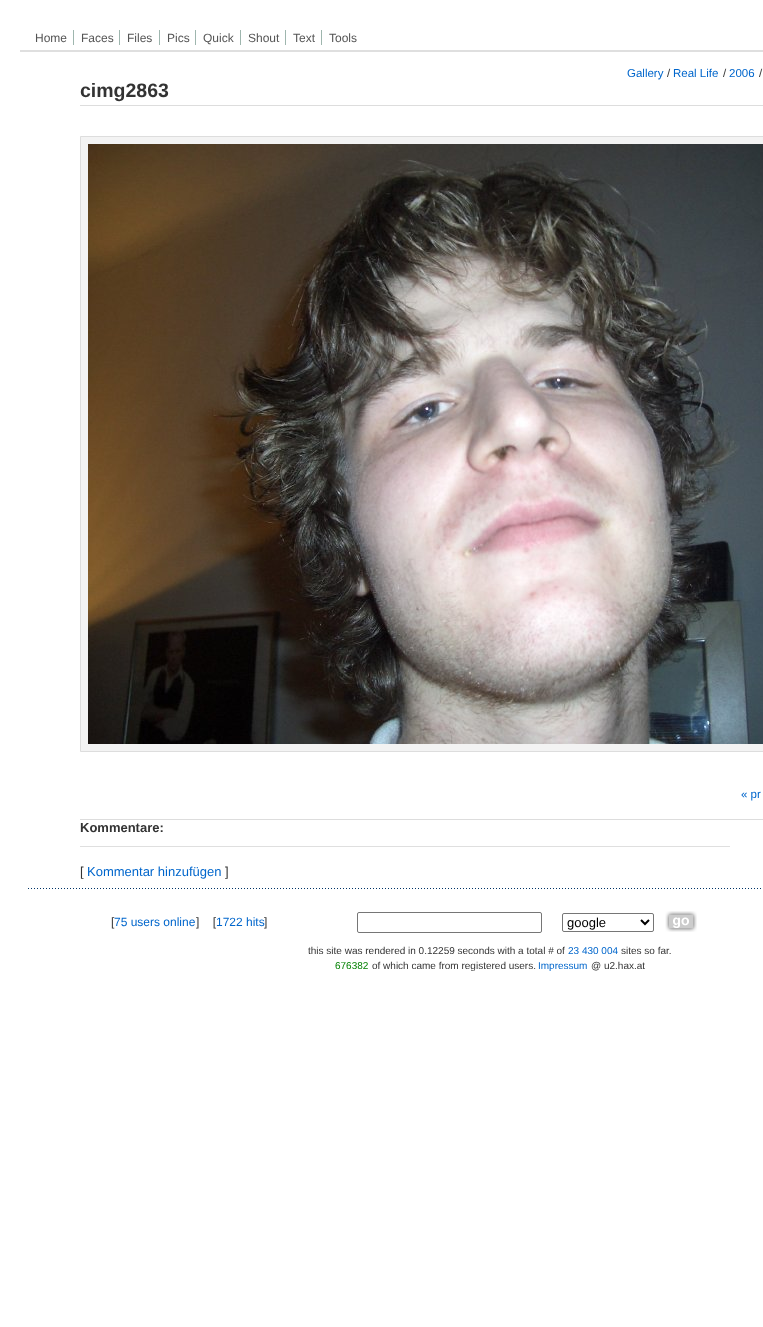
async function draw(canvas) {
	canvas.width = 763;
	canvas.height = 1327;
	const c = canvas.getContext('2d');
	c.miterLimit = 4;
	c.fontKerning = 'normal';
	async function loadImage(src) {
		const img = new Image();
		img.src = src;
		await img.decode();
		return img;
	}

	c.fillStyle = '#fff';
	c.fillRect(0, 0, 763, 1327);
	c.font = '12px Liberation Sans';
	c.fillStyle = '#555';
	c.fillText('Home', 35, 42);
	c.fillStyle = '#9eb6ae';
	c.fillRect(73, 30, 1, 15);
	c.fillStyle = '#555';
	c.fillText('Faces', 81, 42);
	c.fillStyle = '#9eb6ae';
	c.fillRect(119, 30, 1, 15);
	c.fillStyle = '#555';
	c.fillText('Files', 127, 42);
	c.fillStyle = '#9eb6ae';
	c.fillRect(159, 30, 1, 15);
	c.fillStyle = '#555';
	c.fillText('Pics', 167, 42);
	c.fillStyle = '#9eb6ae';
	c.fillRect(195, 30, 1, 15);
	c.fillStyle = '#555';
	c.fillText('Quick', 203, 42);
	c.fillStyle = '#9eb6ae';
	c.fillRect(240, 30, 1, 15);
	c.fillStyle = '#555';
	c.fillText('Shout', 248, 42);
	c.fillStyle = '#9eb6ae';
	c.fillRect(285, 30, 1, 15);
	c.fillStyle = '#555';
	c.fillText('Text', 293, 42);
	c.fillStyle = '#9eb6ae';
	c.fillRect(321, 30, 1, 15);
	c.fillStyle = '#555';
	c.fillText('Tools', 329, 42);
	c.fillStyle = '#dfdfdf';
	c.fillRect(20, 50, 743, 2);
	c.font = '11.5px Liberation Sans';
	c.fillStyle = '#06c';
	c.fillText('Gallery', 627, 77);
	c.fillStyle = '#333';
	c.fillText('/', 667, 77);
	c.fillStyle = '#06c';
	c.fillText('Real Life', 673, 77);
	c.fillStyle = '#333';
	c.fillText('/', 723, 77);
	c.fillStyle = '#06c';
	c.fillText('2006', 729, 77);
	c.fillStyle = '#333';
	c.fillText('/', 759, 77);
	c.fillStyle = '#ddd';
	c.fillRect(80, 105, 683, 1);
	c.font = 'bold 19.5px Liberation Sans';
	c.fillStyle = '#333';
	c.fillText('cimg2863', 80, 97);
	c.fillStyle = '#f3f3f3';
	c.beginPath();
	c.rect(80.5, 136.5, 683, 615);
	c.fill();
	c.strokeStyle = '#ddd';
	c.stroke();
	c.drawImage(await loadImage('img1.png'), 88, 144, 675, 600);
	c.font = '11.5px Liberation Sans';
	c.fillStyle = '#06c';
	c.fillText('« pr', 741, 798);
	c.fillStyle = '#ddd';
	c.fillRect(80, 819, 683, 1);
	c.font = 'bold 13px Liberation Sans';
	c.fillStyle = '#333';
	c.fillText('Kommentare:', 80, 832);
	c.fillStyle = '#dfdfdf';
	c.fillRect(80, 846, 650, 1);
	c.font = '13px Liberation Sans';
	c.fillStyle = '#333';
	c.fillText('[', 80, 876);
	c.fillStyle = '#06c';
	c.fillText('Kommentar hinzufügen', 87, 876);
	c.fillStyle = '#333';
	c.fillText(']', 225, 876);
	c.drawImage(await loadImage('img2.png'), 28, 888, 733, 1);
	c.font = '12px Liberation Sans';
	c.fillText('[', 111, 926);
	c.fillStyle = '#06c';
	c.fillText('75 users online', 114, 926);
	c.fillStyle = '#333';
	c.fillText(']    [', 196, 926);
	c.fillStyle = '#06c';
	c.fillText('1722 hits', 216, 926);
	c.fillStyle = '#333';
	c.fillText(']', 264, 926);
	c.beginPath();
	c.roundRect(357.5, 912.5, 184, 20, 1.5);
	c.strokeStyle = '#767676';
	c.stroke();
	c.beginPath();
	c.roundRect(562.5, 913.5, 91, 18, 1.5);
	c.stroke();
	c.beginPath();
	c.moveTo(641, 920);
	c.lineTo(645, 924);
	c.lineTo(649, 920);
	c.strokeStyle = '#000';
	c.lineWidth = 2;
	c.stroke();
	c.font = '13px Liberation Sans';
	c.fillStyle = '#000';
	c.fillText('google', 567, 927);
	c.drawImage(await loadImage('img3.png'), 665, 911, 32, 21);
	c.font = '10px Liberation Sans';
	c.fillStyle = '#333';
	c.fillText('this site was rendered in 0.12259 seconds with a total # of', 308, 954);
	c.fillStyle = '#06c';
	c.fillText('23 430 004', 568, 954);
	c.fillStyle = '#333';
	c.fillText('sites so far.', 621, 954);
	c.fillStyle = '#008000';
	c.fillText('676382', 335, 969);
	c.fillStyle = '#333';
	c.fillText('of which came from registered users.', 372, 969);
	c.fillStyle = '#06c';
	c.fillText('Impressum', 538, 969);
	c.fillStyle = '#333';
	c.fillText('@ u2.hax.at', 591, 969);
}

draw(document.querySelector('canvas'));
